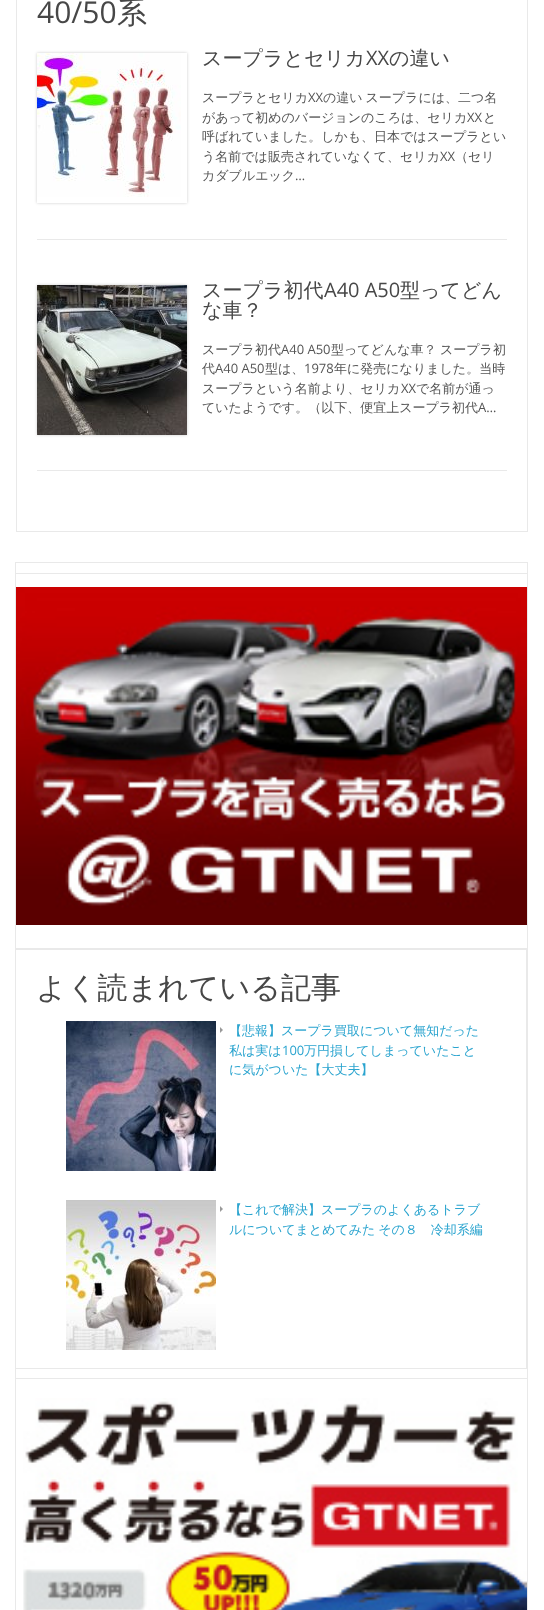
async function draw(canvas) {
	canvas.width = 544;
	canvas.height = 1610;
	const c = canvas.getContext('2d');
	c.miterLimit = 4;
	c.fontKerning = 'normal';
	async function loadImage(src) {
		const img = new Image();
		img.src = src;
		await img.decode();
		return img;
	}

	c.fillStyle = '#fff';
	c.fillRect(0, 0, 544, 1610);
	c.strokeStyle = '#e9e9e9';
	c.strokeRect(16.5, -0.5, 511, 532);
	c.font = '30px Open Sans';
	c.fillStyle = '#474747';
	c.fillText('40/50', 37, 23);
	c.font = '500 30px WenQuanYi Zen Hei';
	c.fillText('系', 117, 23);
	c.fillStyle = '#e9e9e9';
	c.fillRect(37, 239, 470, 1);
	c.save();
	c.beginPath();
	c.moveTo(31, 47);
	c.lineTo(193, 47);
	c.lineTo(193, 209);
	c.lineTo(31, 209);
	c.closePath();
	c.moveTo(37, 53);
	c.lineTo(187, 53);
	c.lineTo(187, 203);
	c.lineTo(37, 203);
	c.closePath();
	c.clip('evenodd');
	c.fillStyle = '#00000033';
	c.filter = 'blur(1.5px)';
	c.beginPath();
	c.rect(37, 53, 150, 150);
	c.fill();
	c.filter = 'none';
	c.restore();
	c.drawImage(await loadImage('img1.png'), 37, 53, 144, 144);
	c.font = '500 20px WenQuanYi Zen Hei';
	c.fillStyle = '#474747';
	c.fillText('スープラとセリカ', 202, 65);
	c.font = '20px Open Sans';
	c.fillText('XX', 366, 65);
	c.font = '500 20px WenQuanYi Zen Hei';
	c.fillText('の違い', 389, 65);
	c.font = '500 13px WenQuanYi Zen Hei';
	c.fillStyle = '#555';
	c.fillText('スープラとセリカ', 202, 102);
	c.font = '13px Open Sans';
	c.fillText('XX', 308, 102);
	c.wordSpacing = '-1px';
	c.font = '500 13px WenQuanYi Zen Hei';
	c.fillText('の違い スープラには、二つ名', 323, 102);
	c.wordSpacing = '0px';
	c.fillText('があって初めのバージョンのころは、セリカ', 202, 122);
	c.font = '13px Open Sans';
	c.fillText('XX', 467, 122);
	c.font = '500 13px WenQuanYi Zen Hei';
	for (const [text, x, y] of [
		['と', 483, 122],
		['呼ばれていました。しかも、日本ではスープラとい', 202, 141],
		['う名前では販売されていなくて、セリカ', 202, 161],
	]) {
		c.fillText(text, x, y);
	}
	c.font = '13px Open Sans';
	c.fillText('XX', 440, 161);
	c.font = '500 13px WenQuanYi Zen Hei';
	c.fillText('（セリ', 455, 161);
	c.fillText('カダブルエック', 202, 180);
	c.font = '13px Open Sans';
	c.fillText('…', 295, 180);
	c.fillStyle = '#e9e9e9';
	c.fillRect(37, 470, 470, 1);
	c.fillStyle = '#00000033';
	c.filter = 'blur(1.5px)';
	c.beginPath();
	c.rect(37, 285, 150, 150);
	c.fill();
	c.filter = 'none';
	c.drawImage(await loadImage('img2.png'), 37, 285, 150, 150);
	c.font = '500 20px WenQuanYi Zen Hei';
	c.fillStyle = '#474747';
	c.fillText('スープラ初代', 202, 297);
	c.font = '20px Open Sans';
	c.fillText('A40 A50', 324, 297);
	c.font = '500 20px WenQuanYi Zen Hei';
	c.fillText('型ってどん', 400, 297);
	c.fillText('な車？', 202, 317);
	c.font = '500 13px WenQuanYi Zen Hei';
	c.fillStyle = '#555';
	c.fillText('スープラ初代', 202, 354);
	c.font = '13px Open Sans';
	c.fillText('A40 A50', 281, 354);
	c.font = '500 13px WenQuanYi Zen Hei';
	for (const [text, x, y] of [
		['型ってどんな車？', 331, 354],
		['スープラ初', 440, 354],
		['代', 202, 373],
	]) {
		c.fillText(text, x, y);
	}
	c.font = '13px Open Sans';
	c.fillText('A40 A50', 215, 373);
	c.font = '500 13px WenQuanYi Zen Hei';
	c.fillText('型は、', 265, 373);
	c.font = '13px Open Sans';
	c.fillText('1978', 304, 373);
	c.font = '500 13px WenQuanYi Zen Hei';
	c.fillText('年に発売になりました。当時', 334, 373);
	c.fillText('スープラという名前より、セリカ', 202, 393);
	c.font = '13px Open Sans';
	c.fillText('XX', 401, 393);
	c.font = '500 13px WenQuanYi Zen Hei';
	c.fillText('で名前が通っ', 416, 393);
	c.fillText('ていたようです。（以下、便宜上スープラ初代', 202, 412);
	c.font = '13px Open Sans';
	c.fillText('A…', 478, 412);
	c.strokeRect(15.5, 562.5, 512, 11);
	c.strokeRect(15.5, 573.5, 512, 375);
	c.drawImage(await loadImage('img3.png'), 16, 587, 511, 338);
	c.strokeRect(15.5, 948.5, 512, 430);
	c.strokeRect(15.5, 949.5, 511, 419);
	c.font = '500 30px WenQuanYi Zen Hei';
	c.fillStyle = '#474747';
	c.fillText('よく読まれている記事', 36, 998);
	c.drawImage(await loadImage('img4.png'), 66, 1021, 150, 150);
	c.fillStyle = '#999';
	c.beginPath();
	c.moveTo(220, 1033);
	c.lineTo(220, 1027);
	c.lineTo(223, 1030);
	c.closePath();
	c.fill();
	c.font = '500 13px WenQuanYi Zen Hei';
	c.fillStyle = '#2aa4cf';
	c.fillText('【悲報】スープラ買取について無知だった', 229, 1035);
	c.fillText('私は実は', 229, 1055);
	c.font = '13px Open Sans';
	c.fillText('100', 282, 1055);
	c.font = '500 13px WenQuanYi Zen Hei';
	c.fillText('万円損してしまっていたこと', 304, 1055);
	c.fillText('に気がついた【大丈夫】', 229, 1074);
	c.drawImage(await loadImage('img5.png'), 66, 1200, 150, 150);
	c.fillStyle = '#999';
	c.beginPath();
	c.moveTo(220, 1212);
	c.lineTo(220, 1206);
	c.lineTo(223, 1209);
	c.closePath();
	c.fill();
	c.fillStyle = '#2aa4cf';
	c.fillText('【これで解決】スープラのよくあるトラブ', 229, 1214);
	c.wordSpacing = '-1px';
	c.fillText('ルについてまとめてみた その８　冷却系編', 229, 1234);
	c.strokeRect(15.5, 1378.5, 512, 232);
	c.drawImage(await loadImage('img6.png'), 23, 1398, 504, 212);
}

draw(document.querySelector('canvas'));
